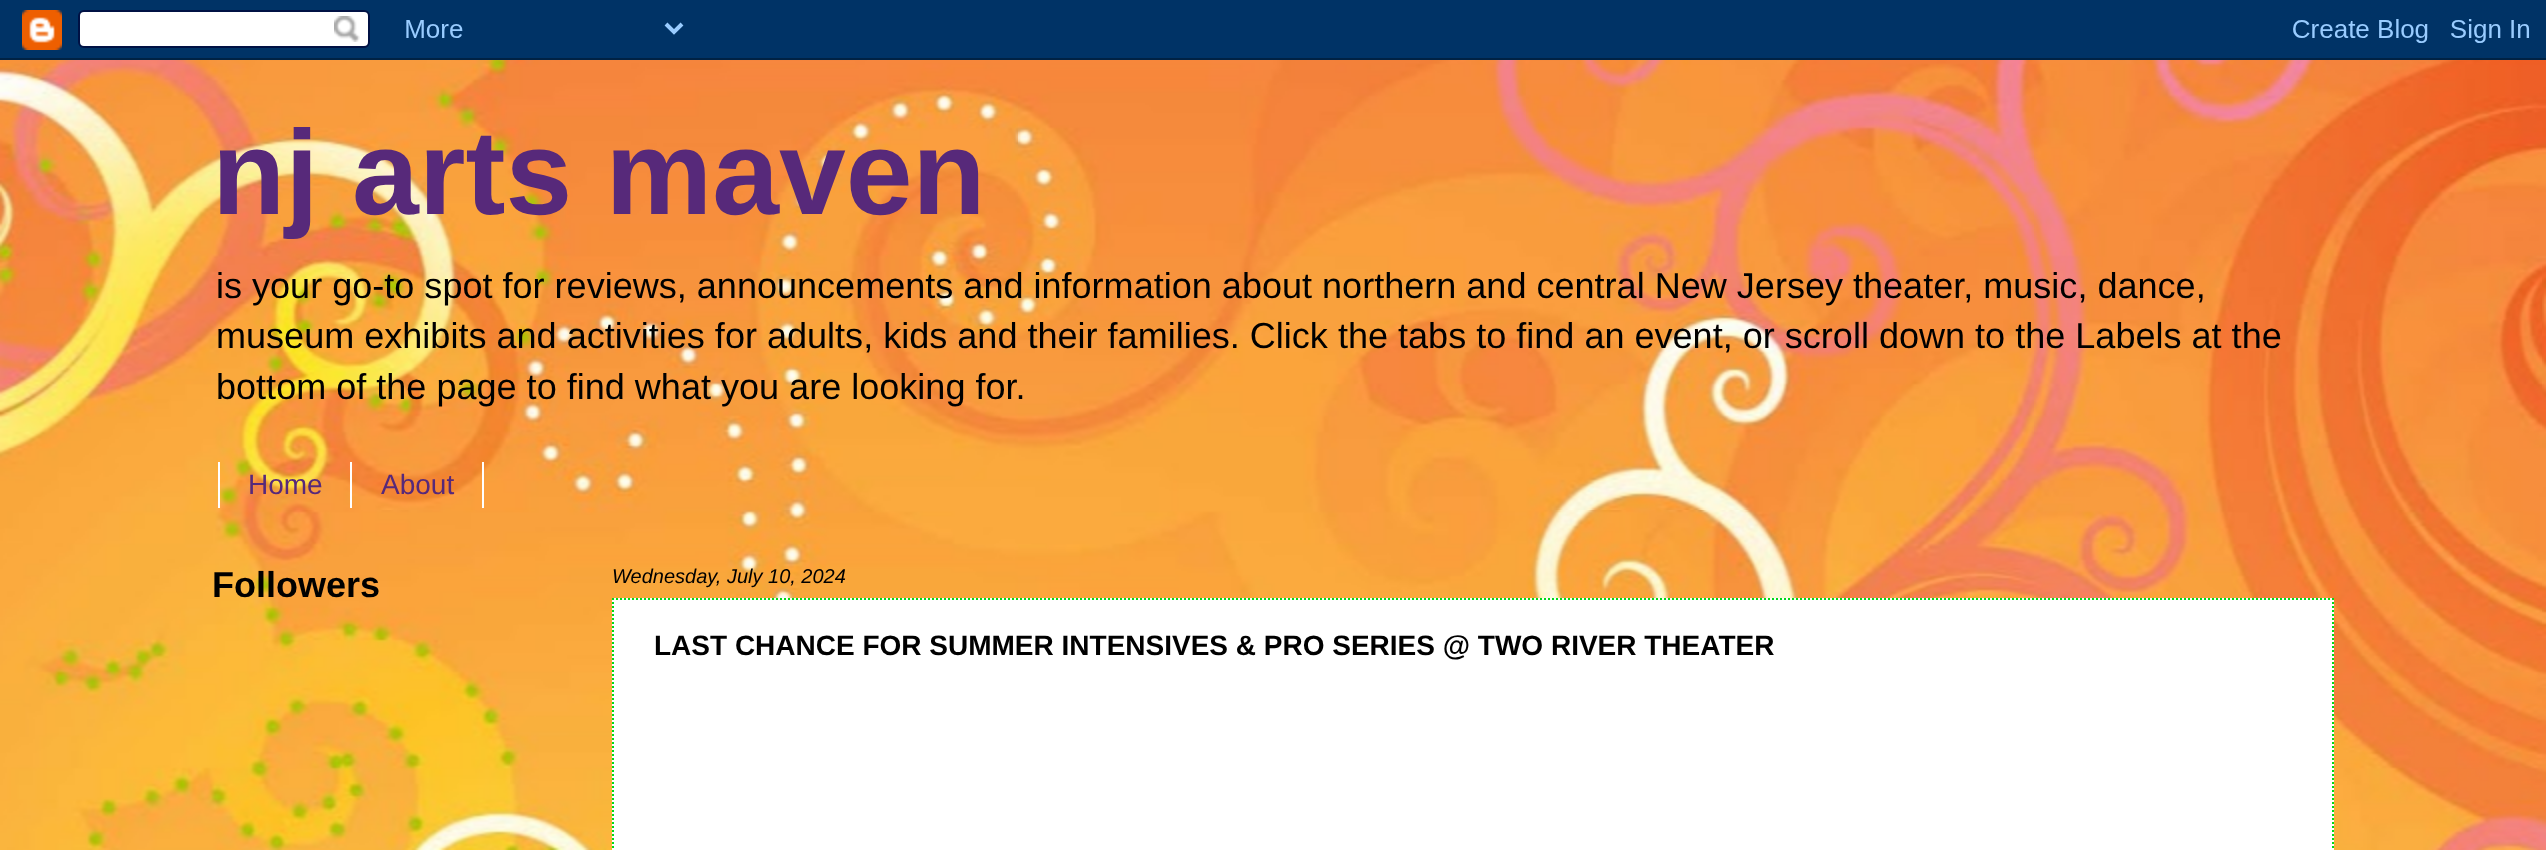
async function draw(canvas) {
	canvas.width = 2546;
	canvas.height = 850;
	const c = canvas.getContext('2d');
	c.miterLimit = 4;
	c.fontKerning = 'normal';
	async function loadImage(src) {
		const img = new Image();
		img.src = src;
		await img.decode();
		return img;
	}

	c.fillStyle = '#fff';
	c.fillRect(0, 0, 2546, 850);
	c.drawImage(await loadImage('img1.png'), 0, 60, 2546, 790);
	c.drawImage(await loadImage('img2.png'), 0, 0, 2546, 60);
	c.font = 'bold 120px Liberation Sans';
	c.fillStyle = '#57297a';
	c.fillText('nj arts maven', 212, 214);
	c.font = '36.05px Liberation Sans';
	c.fillStyle = '#000';
	for (const [text, x, y] of [
		['is your go-to spot for reviews, announcements and information about northern and central New Jersey theater, music, dance,', 216, 298],
		['museum exhibits and activities for adults, kids and their families. Click the tabs to find an event, or scroll down to the Labels at the', 216, 348],
		['bottom of the page to find what you are looking for.', 216, 399],
	]) {
		c.fillText(text, x, y);
	}
	c.fillStyle = '#fff';
	c.fillRect(350, 462, 2, 46);
	c.fillRect(218, 462, 2, 46);
	c.font = '28px Liberation Sans';
	c.fillStyle = '#57297a';
	c.fillText('Home', 248, 494);
	c.fillStyle = '#fff';
	c.fillRect(482, 462, 2, 46);
	c.fillStyle = '#57297a';
	c.fillText('About', 381, 494);
	c.font = 'bold 36px Liberation Sans';
	c.fillStyle = '#000';
	c.fillText('Followers', 212, 597);
	c.font = 'italic 20px Liberation Sans';
	c.fillText('Wednesday, July 10, 2024', 612, 583);
	c.fillStyle = '#fff';
	c.fillRect(612, 598, 1722, 252);
	c.beginPath();
	c.moveTo(612, 599);
	c.lineTo(2334, 599);
	c.strokeStyle = '#00d818';
	c.lineWidth = 2;
	c.setLineDash([2, 2]);
	c.stroke();
	c.beginPath();
	c.moveTo(2333, 598);
	c.lineTo(2333, 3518);
	c.stroke();
	c.beginPath();
	c.moveTo(613, 598);
	c.lineTo(613, 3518);
	c.stroke();
	c.font = 'bold 28px Liberation Sans';
	c.fillStyle = '#000';
	c.fillText('LAST CHANCE FOR SUMMER INTENSIVES & PRO SERIES @ TWO RIVER THEATER', 654, 655);
}

draw(document.querySelector('canvas'));
